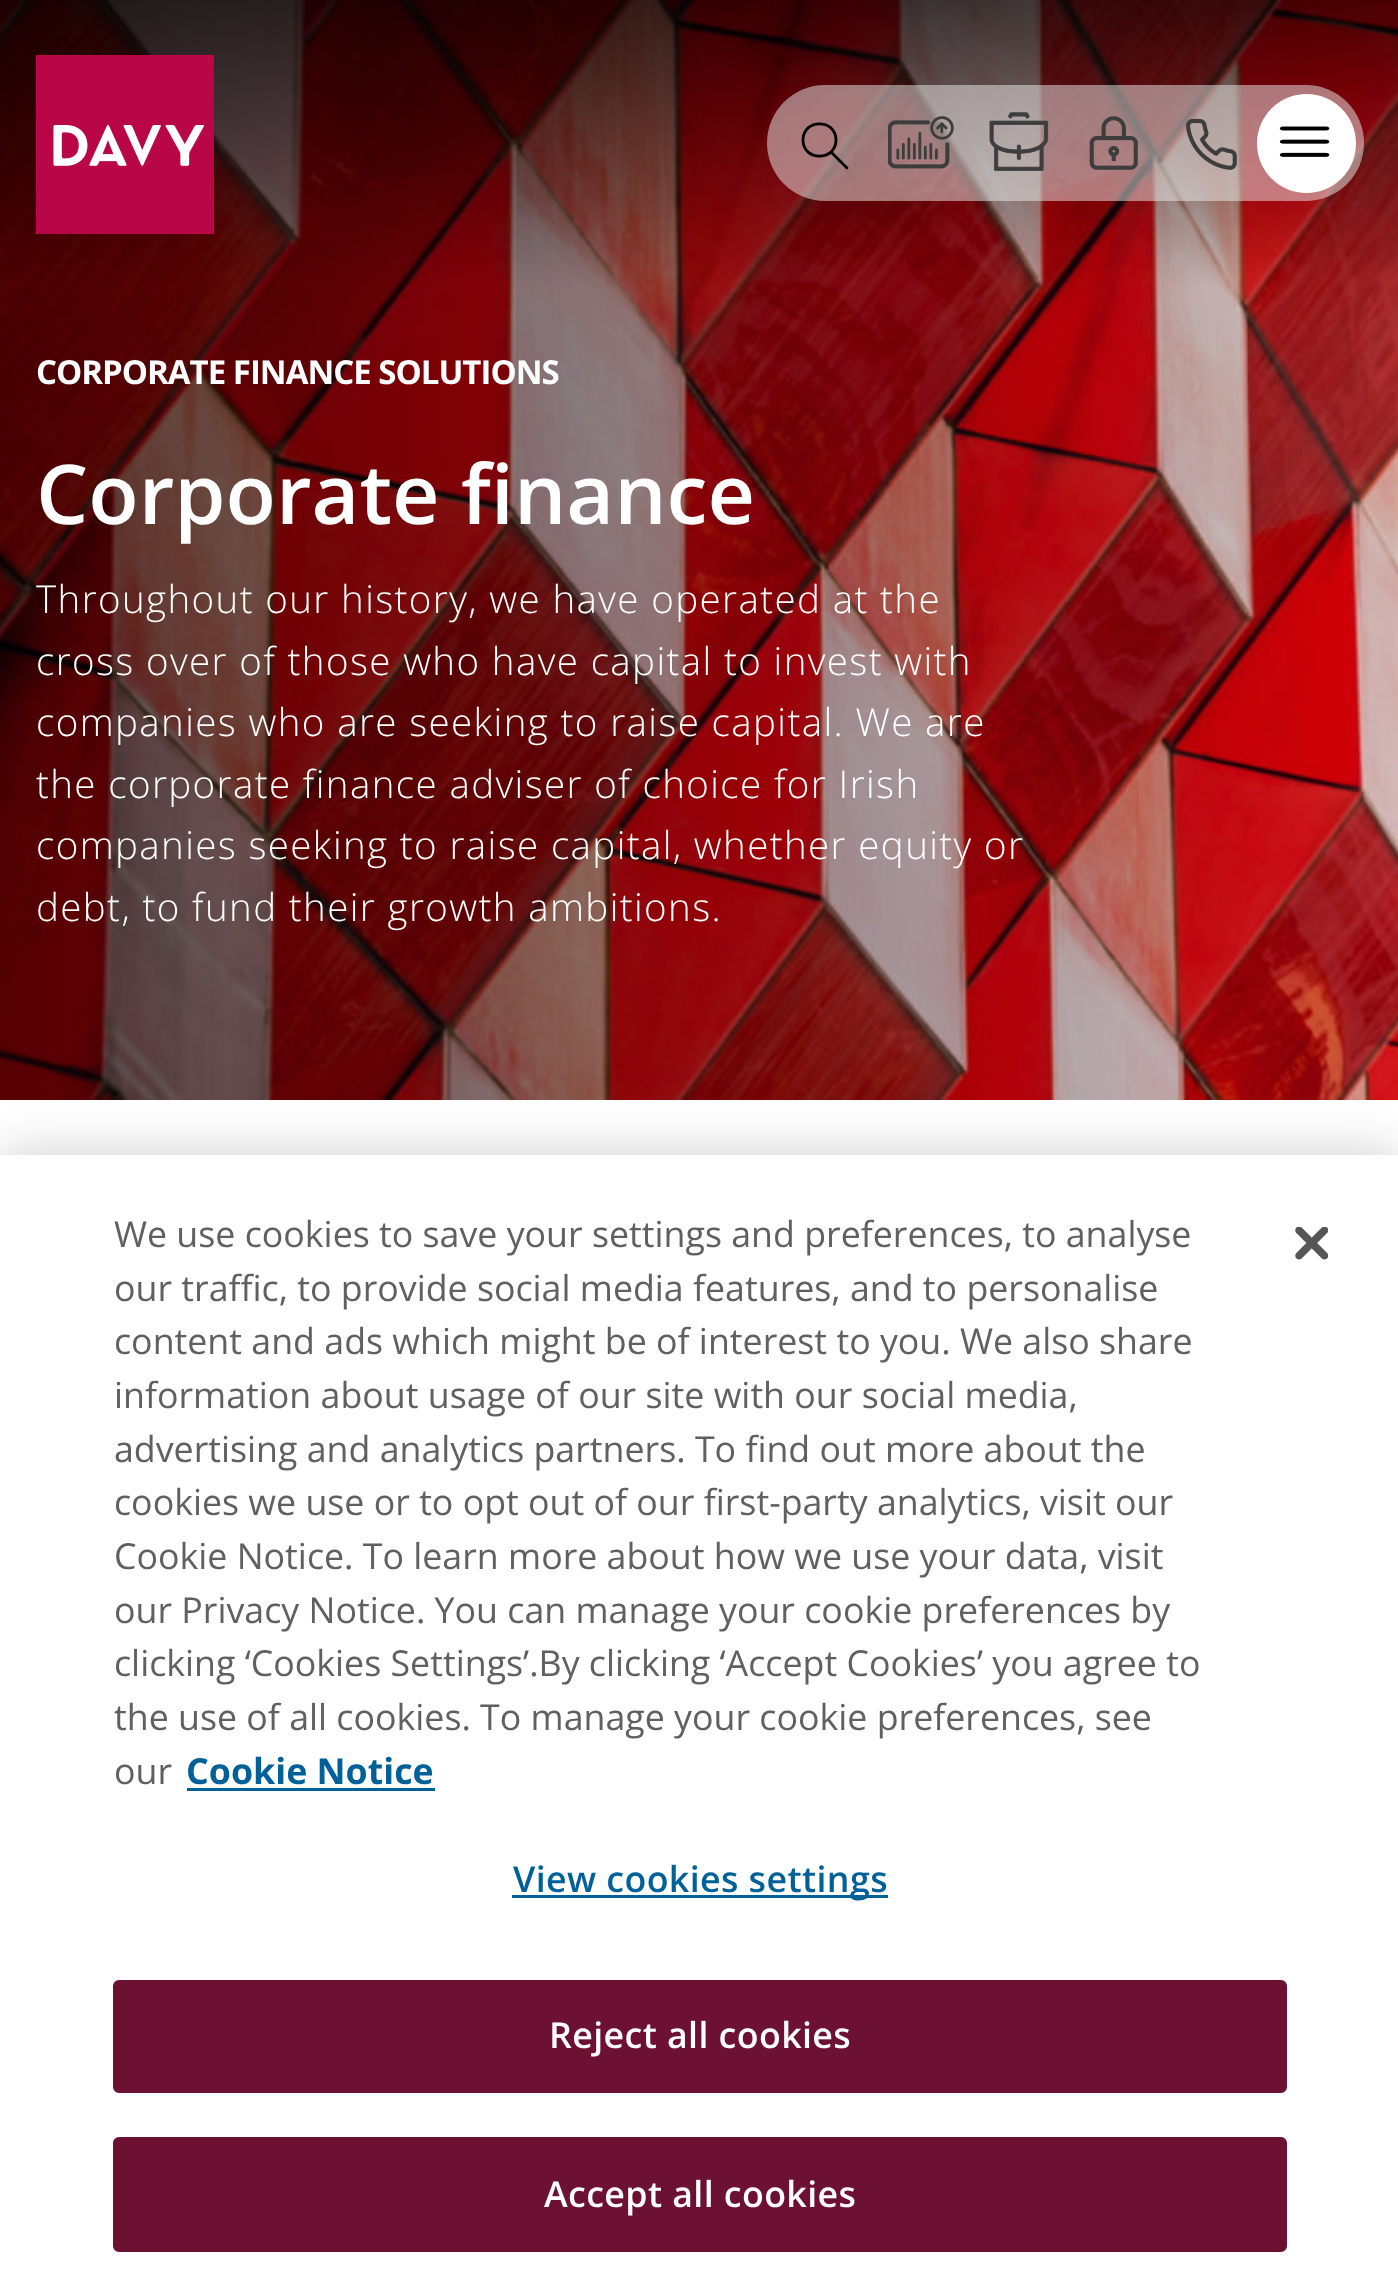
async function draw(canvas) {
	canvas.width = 1398;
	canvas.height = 2296;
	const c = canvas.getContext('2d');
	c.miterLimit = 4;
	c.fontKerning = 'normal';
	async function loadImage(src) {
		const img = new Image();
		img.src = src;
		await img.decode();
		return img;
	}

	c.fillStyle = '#fff';
	c.fillRect(0, 0, 1398, 2296);
	c.drawImage(await loadImage('img7.png'), 0, 0, 1398, 1100);
	c.drawImage(await loadImage('img1.png'), 36, 55, 178, 179);
	c.fillStyle = '#eeeeee80';
	c.beginPath();
	c.roundRect(767, 85, 597, 116, 58);
	c.fill();
	c.fillStyle = '#fff';
	c.beginPath();
	c.arc(1306.5, 143.5, 49.5, 0, 2 * Math.PI);
	c.fill();
	c.beginPath();
	c.moveTo(803, 140);
	c.bezierCurveTo(803, 161.5, 836, 161.5, 836, 140);
	c.bezierCurveTo(836, 118.5, 803, 118.5, 803, 140);
	c.closePath();
	c.moveTo(847, 168);
	c.lineTo(831, 152);
	c.strokeStyle = '#000';
	c.lineWidth = 2.8;
	c.lineCap = 'round';
	c.lineJoin = 'round';
	c.stroke();
	c.drawImage(await loadImage('img2.png'), 888, 116, 66, 53);
	c.drawImage(await loadImage('img3.png'), 989, 112, 60, 59);
	c.drawImage(await loadImage('img4.png'), 1089, 116, 49, 54);
	c.drawImage(await loadImage('img5.png'), 1186, 118, 51, 52);
	c.drawImage(await loadImage('img6.png'), 1279, 126, 51, 31);
	c.letterSpacing = '-1px';
	c.font = 'bold 33px Open Sans';
	c.fillText('CORPORATE FINANCE SOLUTIONS', 36, 384);
	c.letterSpacing = '0px';
	c.font = '600 82.5px Open Sans';
	c.fillText('Corporate finance', 36, 524);
	c.letterSpacing = '1.38px';
	c.font = '300 38.5px Open Sans';
	for (const [text, x, y] of [
		['Throughout our history, we have operated at the', 36, 613],
		['cross over of those who have capital to invest with', 36, 675],
		['companies who are seeking to raise capital. We are', 36, 736],
		['the corporate finance adviser of choice for Irish', 36, 798],
		['companies seeking to raise capital, whether equity or', 36, 859],
		['debt, to fund their growth ambitions.', 36, 921],
	]) {
		c.fillText(text, x, y);
	}
	c.fillStyle = '#00000033';
	c.filter = 'blur(25px)';
	c.beginPath();
	c.rect(0, 1155, 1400, 1141);
	c.fill();
	c.filter = 'none';
	c.fillStyle = '#fff';
	c.fillRect(0, 1155, 1398, 1141);
	c.letterSpacing = '0px';
	c.font = '35.75px Open Sans';
	c.fillStyle = '#606060';
	for (const [text, x, y] of [
		['We use cookies to save your settings and preferences, to analyse', 114, 1247],
		['our traffic, to provide social media features, and to personalise', 114, 1301],
		['content and ads which might be of interest to you. We also share', 114, 1354],
		['information about usage of our site with our social media,', 114, 1408],
		['advertising and analytics partners. To find out more about the', 114, 1462],
		['cookies we use or to opt out of our first-party analytics, visit our', 114, 1515],
		['Cookie Notice. To learn more about how we use your data, visit', 114, 1569],
		['our Privacy Notice. You can manage your cookie preferences by', 114, 1623],
		['clicking ‘Cookies Settings’.By clicking ‘Accept Cookies’ you agree to', 114, 1676],
		['the use of all cookies. To manage your cookie preferences, see', 114, 1730],
		['our', 114, 1784],
	]) {
		c.fillText(text, x, y);
	}
	c.font = 'bold 35.75px Open Sans';
	c.fillStyle = '#006199';
	c.fillText('Cookie Notice', 186, 1784);
	c.fillRect(187, 1788, 248, 3);
	c.fillRect(512, 1895, 376, 3);
	c.letterSpacing = '0.4px';
	c.font = '600 35.75px Open Sans';
	c.fillText('View cookies settings', 513, 1892);
	c.fillStyle = '#6d1132';
	c.beginPath();
	c.roundRect(114.5, 1981.5, 1171, 110, 4.5);
	c.fill();
	c.strokeStyle = '#6d1132';
	c.lineWidth = 3;
	c.lineJoin = 'miter';
	c.stroke();
	c.fillStyle = '#fff';
	c.fillText('Reject all cookies', 549, 2048);
	c.fillStyle = '#6d1132';
	c.beginPath();
	c.roundRect(114.5, 2138.5, 1171, 112, 4.5);
	c.fill();
	c.stroke();
	c.fillStyle = '#fff';
	c.fillText('Accept all cookies', 544, 2207);
	c.drawImage(await loadImage('img8.png'), 1295, 1227, 33, 33);
}

draw(document.querySelector('canvas'));
